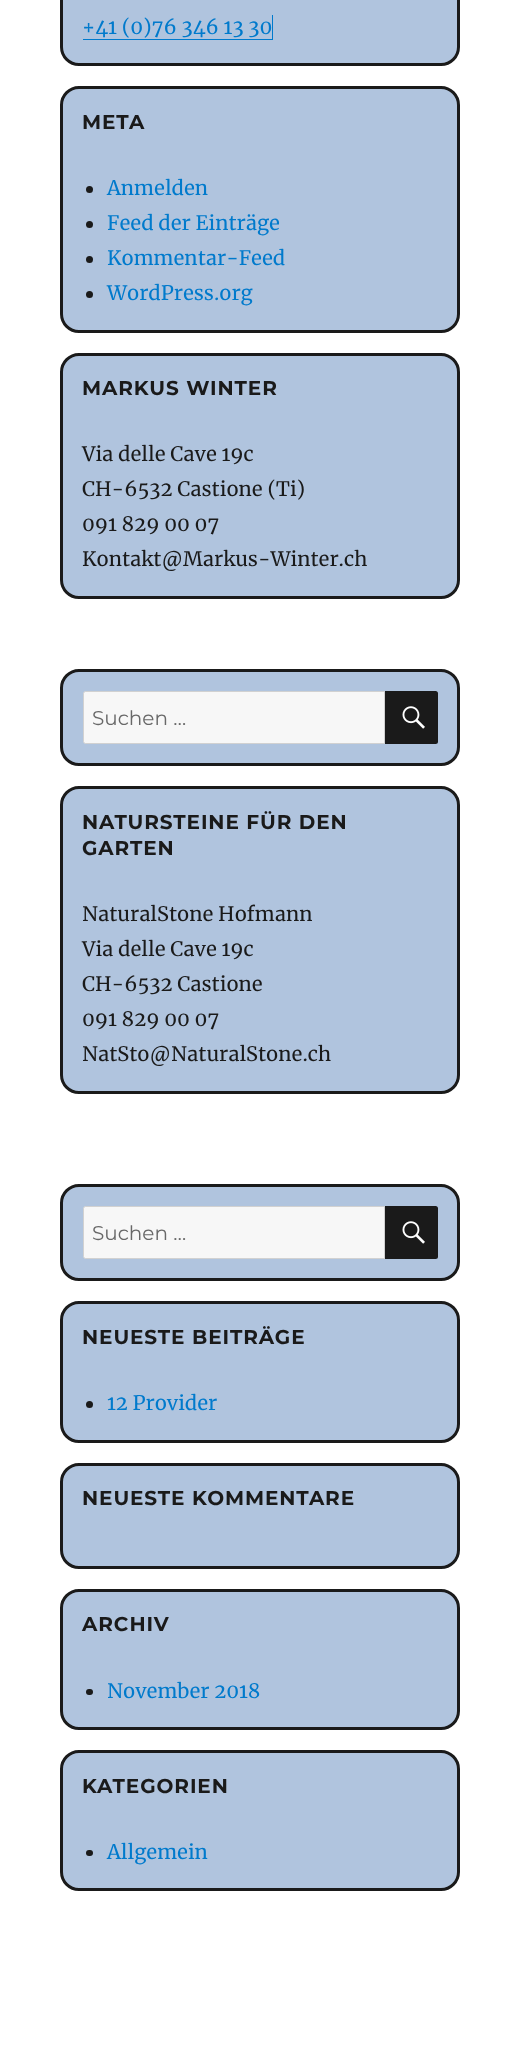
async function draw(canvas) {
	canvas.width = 520;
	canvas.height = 2048;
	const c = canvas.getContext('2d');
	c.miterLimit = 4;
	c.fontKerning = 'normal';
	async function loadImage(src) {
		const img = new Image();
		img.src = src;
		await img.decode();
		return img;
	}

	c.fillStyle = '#fff';
	c.fillRect(0, 0, 520, 2048);
	c.fillStyle = '#b0c4de';
	c.beginPath();
	c.roundRect(61.5, -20.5, 397, 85, 17.5);
	c.fill();
	c.strokeStyle = '#1a1a1a';
	c.lineWidth = 3;
	c.stroke();
	c.fillStyle = '#007acc';
	c.beginPath();
	c.moveTo(83, 39);
	c.lineTo(83, 40);
	c.lineTo(273, 40);
	c.lineTo(273, 15);
	c.lineTo(272, 15);
	c.lineTo(272, 39);
	c.closePath();
	c.fill();
	c.font = '20px Merriweather';
	c.fillText('+41 (0)76 346 13 30', 82, 34);
	c.fillStyle = '#b0c4de';
	c.beginPath();
	c.roundRect(61.5, 87.5, 397, 244, 17.5);
	c.fill();
	c.stroke();
	c.letterSpacing = '0.9px';
	c.font = '100 20px Montserrat';
	c.fillStyle = '#1a1a1a';
	c.fillText('META', 82, 129);
	c.beginPath();
	c.arc(89.5, 189.5, 3.5, 0, 2 * Math.PI);
	c.fill();
	c.letterSpacing = '0px';
	c.font = '20px Merriweather';
	c.fillStyle = '#007acc';
	c.fillText('Anmelden', 107, 195);
	c.fillStyle = '#1a1a1a';
	c.beginPath();
	c.arc(89.5, 224.5, 3.5, 0, 2 * Math.PI);
	c.fill();
	c.fillStyle = '#007acc';
	c.fillText('Feed der Einträge', 107, 230);
	c.fillStyle = '#1a1a1a';
	c.beginPath();
	c.arc(89.5, 259.5, 3.5, 0, 2 * Math.PI);
	c.fill();
	c.fillStyle = '#007acc';
	c.fillText('Kommentar-Feed', 107, 265);
	c.fillStyle = '#1a1a1a';
	c.beginPath();
	c.arc(89.5, 294.5, 3.5, 0, 2 * Math.PI);
	c.fill();
	c.fillStyle = '#007acc';
	c.fillText('WordPress.org', 107, 300);
	c.fillStyle = '#b0c4de';
	c.beginPath();
	c.roundRect(61.5, 354.5, 397, 243, 17.5);
	c.fill();
	c.stroke();
	c.letterSpacing = '0.9px';
	c.font = '100 20px Montserrat';
	c.fillStyle = '#1a1a1a';
	c.fillText('MARKUS WINTER', 82, 395);
	c.letterSpacing = '0px';
	c.font = '20px Merriweather';
	for (const [text, x, y] of [
		['Via delle Cave 19c', 82, 461],
		['CH-6532 Castione (Ti)', 82, 496],
		['091 829 00 07', 82, 531],
		['Kontakt@Markus-Winter.ch', 82, 566],
	]) {
		c.fillText(text, x, y);
	}
	c.fillStyle = '#b0c4de';
	c.beginPath();
	c.roundRect(61.5, 670.5, 397, 94, 17.5);
	c.fill();
	c.stroke();
	c.fillStyle = '#f7f7f7';
	c.beginPath();
	c.roundRect(83.5, 691.5, 301, 52, [2, 0, 0, 2]);
	c.fill();
	c.strokeStyle = '#d1d1d1';
	c.lineWidth = 1;
	c.stroke();
	c.font = '100 20px "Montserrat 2"';
	c.fillStyle = '#686868';
	c.fillText('Suchen …', 92, 725);
	c.fillStyle = '#1a1a1a';
	c.beginPath();
	c.roundRect(385, 691, 53, 53, [0, 2.5, 2.5, 0]);
	c.fill();
	c.drawImage(await loadImage('img1.png'), 402, 706, 23, 23);
	c.fillStyle = '#b0c4de';
	c.beginPath();
	c.roundRect(61.5, 787.5, 397, 305, 17.5);
	c.fill();
	c.strokeStyle = '#1a1a1a';
	c.lineWidth = 3;
	c.stroke();
	c.letterSpacing = '0.9px';
	c.font = '100 20px Montserrat';
	c.fillStyle = '#1a1a1a';
	c.fillText('NATURSTEINE FÜR DEN', 82, 829);
	c.fillText('GARTEN', 82, 855);
	c.letterSpacing = '0px';
	c.font = '20px Merriweather';
	for (const [text, x, y] of [
		['NaturalStone Hofmann', 82, 921],
		['Via delle Cave 19c', 82, 956],
		['CH-6532 Castione', 82, 991],
		['091 829 00 07', 82, 1026],
		['NatSto@NaturalStone.ch', 82, 1061],
	]) {
		c.fillText(text, x, y);
	}
	c.fillStyle = '#b0c4de';
	c.beginPath();
	c.roundRect(61.5, 1185.5, 397, 94, 17.5);
	c.fill();
	c.stroke();
	c.fillStyle = '#f7f7f7';
	c.beginPath();
	c.roundRect(83.5, 1206.5, 301, 52, [2, 0, 0, 2]);
	c.fill();
	c.strokeStyle = '#d1d1d1';
	c.lineWidth = 1;
	c.stroke();
	c.font = '100 20px "Montserrat 2"';
	c.fillStyle = '#686868';
	c.fillText('Suchen …', 92, 1240);
	c.fillStyle = '#1a1a1a';
	c.beginPath();
	c.roundRect(385, 1206, 53, 53, [0, 2.5, 2.5, 0]);
	c.fill();
	c.drawImage(await loadImage('img1.png'), 402, 1221, 23, 23);
	c.fillStyle = '#b0c4de';
	c.beginPath();
	c.roundRect(61.5, 1302.5, 397, 139, 17.5);
	c.fill();
	c.strokeStyle = '#1a1a1a';
	c.lineWidth = 3;
	c.stroke();
	c.letterSpacing = '0.9px';
	c.font = '100 20px Montserrat';
	c.fillStyle = '#1a1a1a';
	c.fillText('NEUESTE BEITRÄGE', 82, 1344);
	c.beginPath();
	c.arc(89.5, 1404.5, 3.5, 0, 2 * Math.PI);
	c.fill();
	c.letterSpacing = '0px';
	c.font = '20px Merriweather';
	c.fillStyle = '#007acc';
	c.fillText('12 Provider', 107, 1410);
	c.fillStyle = '#b0c4de';
	c.beginPath();
	c.roundRect(61.5, 1464.5, 397, 103, 17.5);
	c.fill();
	c.stroke();
	c.letterSpacing = '0.9px';
	c.font = '100 20px Montserrat';
	c.fillStyle = '#1a1a1a';
	c.fillText('NEUESTE KOMMENTARE', 82, 1505);
	c.fillStyle = '#b0c4de';
	c.beginPath();
	c.roundRect(61.5, 1590.5, 397, 138, 17.5);
	c.fill();
	c.stroke();
	c.fillStyle = '#1a1a1a';
	c.fillText('ARCHIV', 82, 1631);
	c.beginPath();
	c.roundRect(86, 1689, 7, 6, 3);
	c.fill();
	c.letterSpacing = '0px';
	c.font = '20px Merriweather';
	c.fillStyle = '#007acc';
	c.fillText('November 2018', 107, 1698);
	c.fillStyle = '#b0c4de';
	c.beginPath();
	c.roundRect(61.5, 1751.5, 397, 138, 17.5);
	c.fill();
	c.stroke();
	c.letterSpacing = '0.9px';
	c.font = '100 20px Montserrat';
	c.fillStyle = '#1a1a1a';
	c.fillText('KATEGORIEN', 82, 1793);
	c.beginPath();
	c.roundRect(86, 1850, 7, 6, 3);
	c.fill();
	c.letterSpacing = '0px';
	c.font = '20px Merriweather';
	c.fillStyle = '#007acc';
	c.fillText('Allgemein', 107, 1859);
}

draw(document.querySelector('canvas'));
